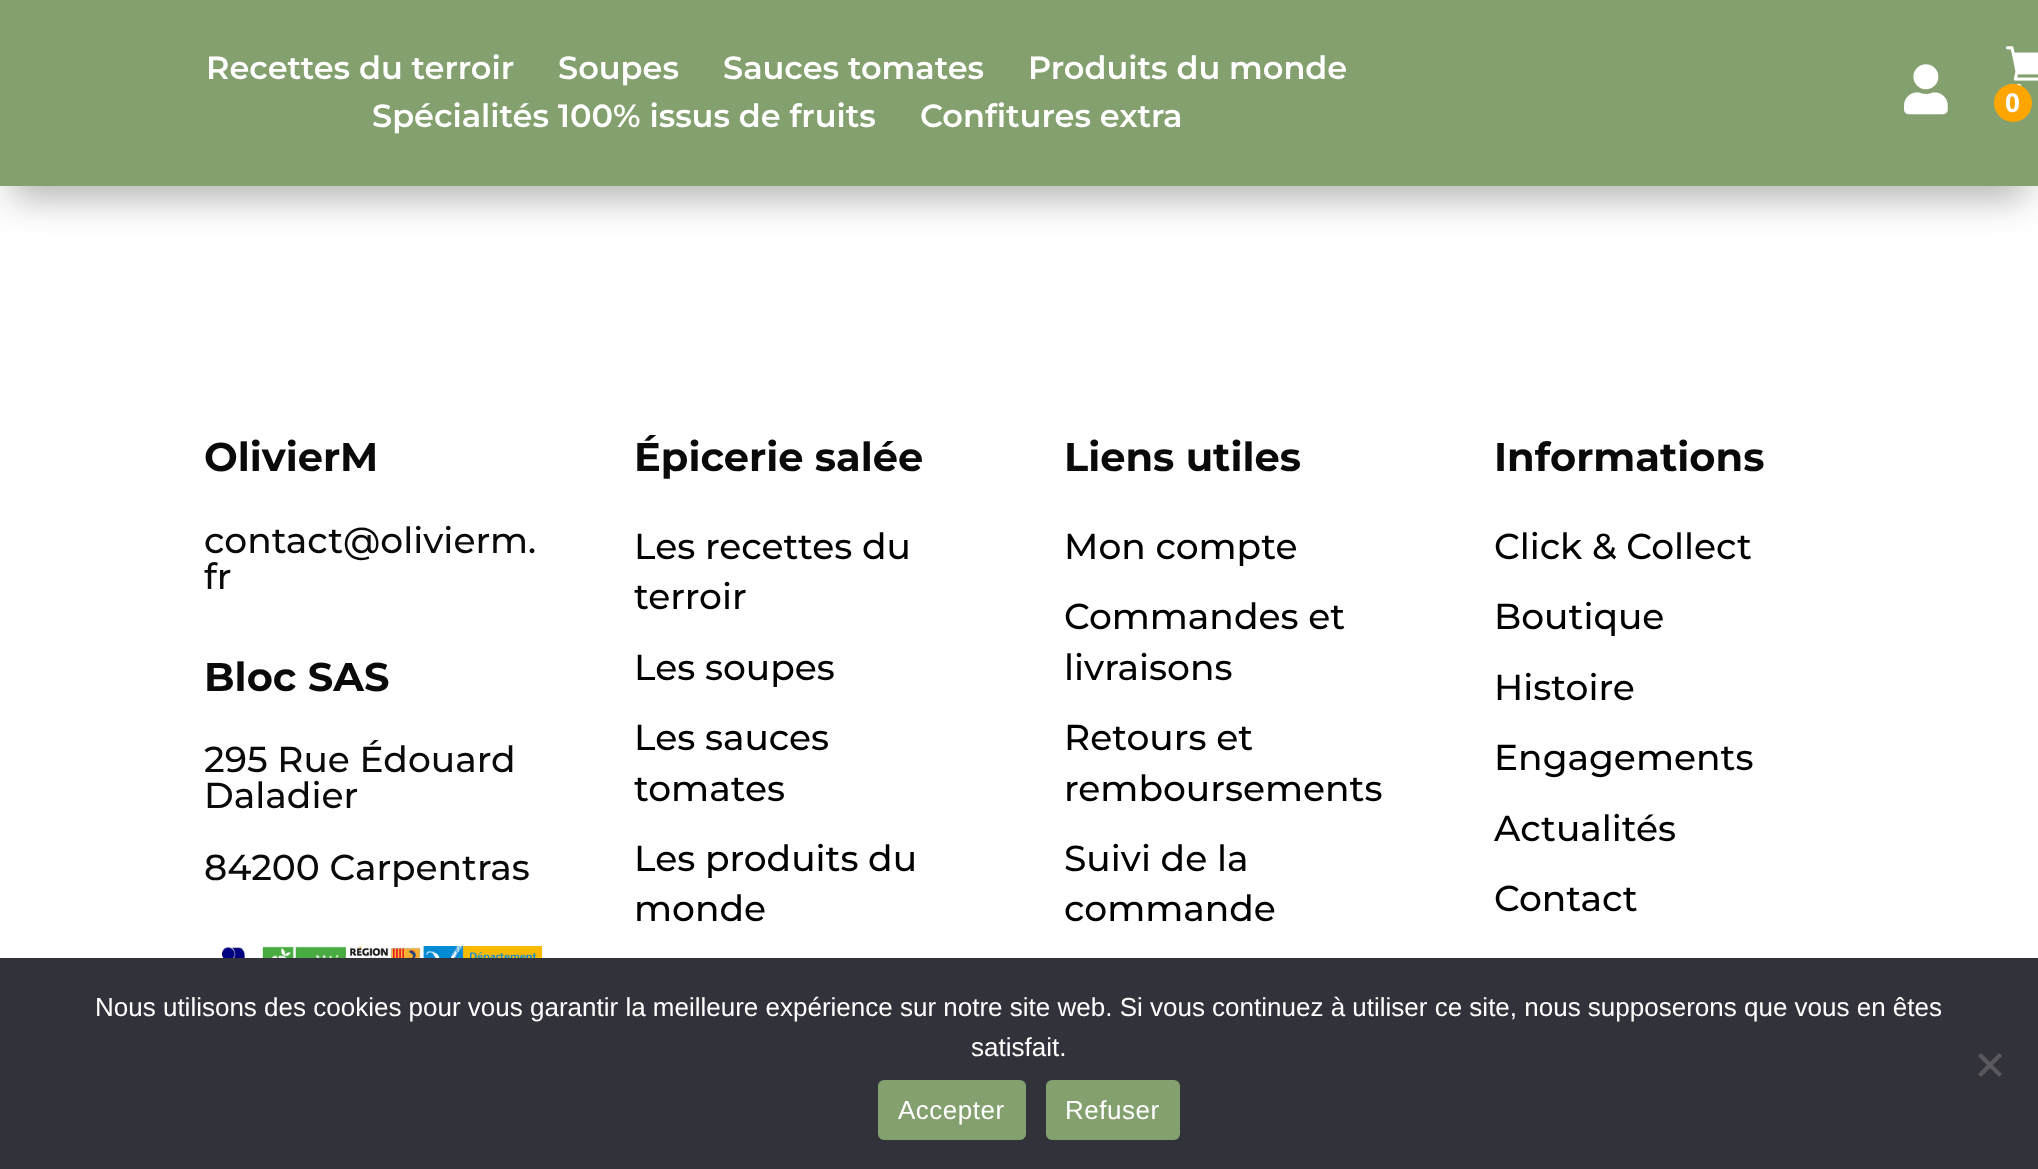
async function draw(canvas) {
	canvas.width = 2038;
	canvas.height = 1169;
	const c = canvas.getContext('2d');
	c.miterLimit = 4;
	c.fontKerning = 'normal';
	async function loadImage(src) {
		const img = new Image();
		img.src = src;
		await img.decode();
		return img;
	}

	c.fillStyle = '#fff';
	c.fillRect(0, 0, 2038, 1169);
	c.fillStyle = '#0000004d';
	c.filter = 'blur(18px)';
	c.beginPath();
	c.rect(12, 36, 2014, 162);
	c.fill();
	c.filter = 'none';
	c.fillStyle = '#83a06e';
	c.fillRect(0, 0, 2038, 186);
	c.font = '600 32px Montserrat';
	c.fillStyle = '#fff';
	for (const [text, x, y] of [
		['Recettes du terroir', 206, 79],
		['Soupes', 558, 79],
		['Sauces tomates', 723, 79],
		['Produits du monde', 1028, 79],
		['Spécialités 100% issus de fruits', 372, 127],
		['Confitures extra', 920, 127],
	]) {
		c.fillText(text, x, y);
	}
	c.drawImage(await loadImage('img1.png'), 1904, 64, 44, 51);
	c.drawImage(await loadImage('img2.png'), 2005, 46, 33, 41);
	c.fillStyle = '#ffa500';
	c.beginPath();
	c.arc(2013, 103, 19, 0, 2 * Math.PI);
	c.fill();
	c.font = 'bold 26px Open Sans';
	c.fillStyle = '#fff';
	c.fillText('0', 2005, 112);
	c.font = 'bold 40px Montserrat';
	c.fillStyle = '#0a0a0a';
	c.fillText('OlivierM', 204, 471);
	c.font = '500 36px Montserrat';
	c.fillText('contact@olivierm.', 204, 553);
	c.fillText('fr', 204, 589);
	c.font = 'bold 40px Montserrat';
	c.fillText('Bloc SAS', 204, 691);
	c.font = '500 36px Montserrat';
	for (const [text, x, y] of [
		['295 Rue Édouard', 204, 772],
		['Daladier', 204, 808],
		['84200 Carpentras', 204, 880],
	]) {
		c.fillText(text, x, y);
	}
	c.drawImage(await loadImage('img3.png'), 204, 946, 338, 12);
	c.font = 'bold 40px Montserrat';
	c.fillText('Épicerie salée', 634, 471);
	c.font = '500 36px Montserrat';
	c.fillStyle = '#000';
	for (const [text, x, y] of [
		['Les recettes du', 634, 559],
		['terroir', 634, 609],
		['Les soupes', 634, 680],
		['Les sauces', 634, 750],
		['tomates', 634, 801],
		['Les produits du', 634, 871],
		['monde', 634, 921],
	]) {
		c.fillText(text, x, y);
	}
	c.font = 'bold 40px Montserrat';
	c.fillStyle = '#0a0a0a';
	c.fillText('Liens utiles', 1064, 471);
	c.font = '500 36px Montserrat';
	c.fillStyle = '#000';
	for (const [text, x, y] of [
		['Mon compte', 1064, 559],
		['Commandes et', 1064, 629],
		['livraisons', 1064, 680],
		['Retours et', 1064, 750],
		['remboursements', 1064, 801],
		['Suivi de la', 1064, 871],
		['commande', 1064, 921],
	]) {
		c.fillText(text, x, y);
	}
	c.font = 'bold 40px Montserrat';
	c.fillStyle = '#0a0a0a';
	c.fillText('Informations', 1494, 471);
	c.font = '500 36px Montserrat';
	c.fillStyle = '#000';
	for (const [text, x, y] of [
		['Click & Collect', 1494, 559],
		['Boutique', 1494, 629],
		['Histoire', 1494, 700],
		['Engagements', 1494, 770],
		['Actualités', 1494, 841],
		['Contact', 1494, 911],
	]) {
		c.fillText(text, x, y);
	}
	c.fillStyle = '#32323a';
	c.fillRect(0, 958, 2038, 211);
	c.font = '26px Liberation Sans';
	c.fillStyle = '#fff';
	c.fillText('Nous utilisons des cookies pour vous garantir la meilleure expérience sur notre site web. Si vous continuez à utiliser ce site, nous supposerons que vous en êtes', 95, 1016);
	c.fillText('satisfait.', 971, 1056);
	c.fillStyle = '#59595d';
	c.beginPath();
	c.moveTo(1999, 1053);
	c.lineTo(2002, 1056);
	c.lineTo(1981, 1077);
	c.lineTo(1978, 1074);
	c.closePath();
	c.fill();
	c.beginPath();
	c.moveTo(1978, 1056);
	c.lineTo(1981, 1053);
	c.lineTo(2002, 1074);
	c.lineTo(1999, 1077);
	c.closePath();
	c.fill();
	c.fillStyle = '#83a06e';
	c.beginPath();
	c.roundRect(878, 1080, 148, 60, 6);
	c.fill();
	c.letterSpacing = '0.5px';
	c.fillStyle = '#fff';
	c.fillText('Accepter', 898, 1119);
	c.fillStyle = '#83a06e';
	c.beginPath();
	c.roundRect(1046, 1080, 134, 60, 6);
	c.fill();
	c.fillStyle = '#fff';
	c.fillText('Refuser', 1065, 1119);
}

draw(document.querySelector('canvas'));
